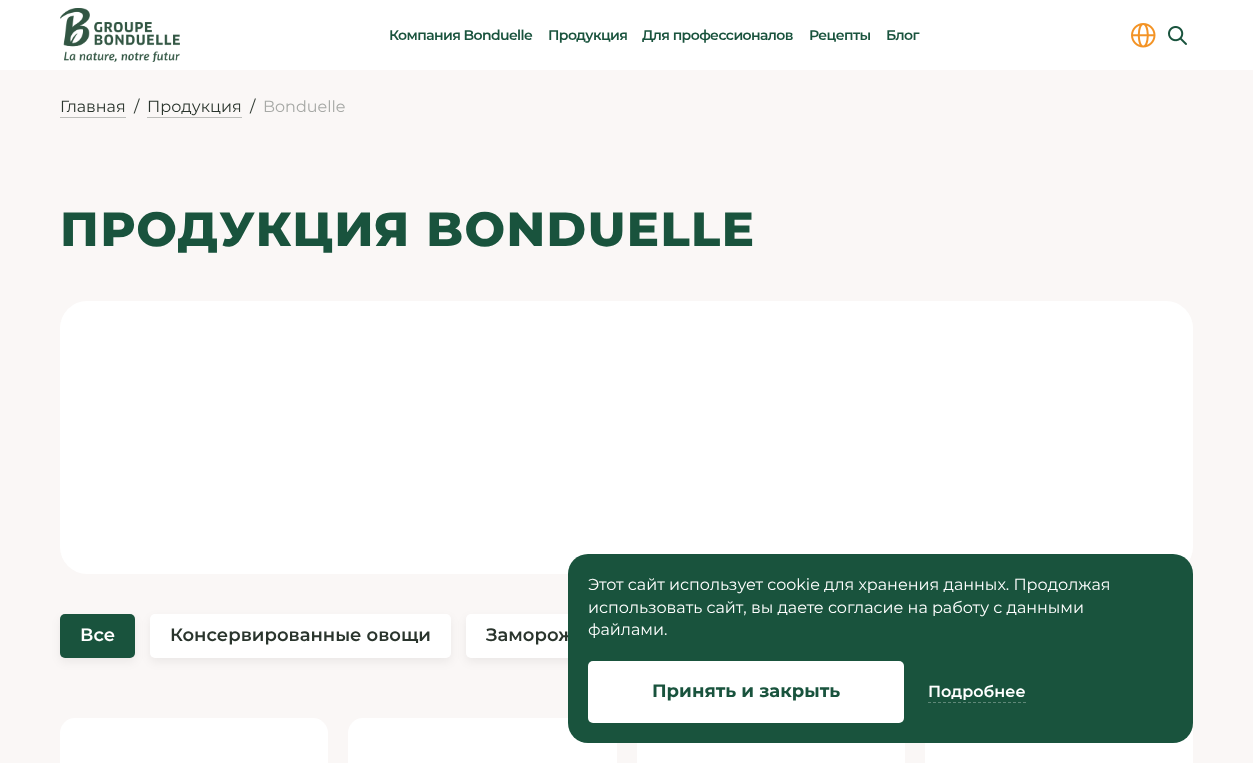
async function draw(canvas) {
	canvas.width = 1253;
	canvas.height = 763;
	const c = canvas.getContext('2d');
	c.miterLimit = 4;
	c.fontKerning = 'normal';
	async function loadImage(src) {
		const img = new Image();
		img.src = src;
		await img.decode();
		return img;
	}

	c.fillStyle = '#faf7f6';
	c.fillRect(0, 0, 1253, 763);
	c.fillStyle = '#fff';
	c.fillRect(0, 0, 1253, 70);
	c.drawImage(await loadImage('img1.png'), 60, 8, 120, 54);
	c.letterSpacing = '-0.6px';
	c.font = '600 14px Montserrat';
	c.fillStyle = '#19533d';
	for (const [text, x, y] of [
		['Компания Bonduelle', 389, 40],
		['Продукция', 548, 40],
		['Для профессионалов', 642, 40],
		['Рецепты', 809, 40],
		['Блог', 886, 40],
	]) {
		c.fillText(text, x, y);
	}
	c.drawImage(await loadImage('img2.png'), 1131, 23, 25, 25);
	c.drawImage(await loadImage('img3.png'), 1168, 26, 19, 19);
	c.letterSpacing = '0px';
	c.font = '16px Montserrat';
	c.fillStyle = '#2a352d';
	c.fillText('Главная', 60, 112);
	c.fillStyle = '#bcbdba';
	c.fillRect(60, 117, 66, 1);
	c.fillStyle = '#2a352d';
	c.fillText('/', 134, 112);
	c.fillText('Продукция', 147, 112);
	c.fillStyle = '#bcbdba';
	c.fillRect(147, 117, 95, 1);
	c.fillStyle = '#2a352d';
	c.fillText('/', 250, 112);
	c.fillStyle = '#a7a9a6';
	c.fillText('Bonduelle', 263, 112);
	c.letterSpacing = '1.4px';
	c.font = '800 48px Montserrat';
	c.fillStyle = '#19533d';
	c.fillText('ПРОДУКЦИЯ BONDUELLE', 60, 246);
	c.fillStyle = '#fff';
	c.beginPath();
	c.roundRect(60, 301, 1133, 273, 27);
	c.fill();
	c.fillStyle = '#0000000f';
	c.filter = 'blur(5px)';
	c.beginPath();
	c.roundRect(60, 618, 75, 44, 5);
	c.fill();
	c.filter = 'none';
	c.fillStyle = '#19533d';
	c.beginPath();
	c.roundRect(60, 614, 75, 44, 5);
	c.fill();
	c.letterSpacing = '0px';
	c.font = '600 18px Montserrat';
	c.fillStyle = '#fff';
	c.fillText('Все', 80, 641);
	c.fillStyle = '#0000000f';
	c.filter = 'blur(5px)';
	c.beginPath();
	c.roundRect(150, 618, 301, 44, 5);
	c.fill();
	c.filter = 'none';
	c.fillStyle = '#fff';
	c.beginPath();
	c.roundRect(150, 614, 301, 44, 5);
	c.fill();
	c.fillStyle = '#2a352d';
	c.fillText('Консервированные овощи', 170, 641);
	c.fillStyle = '#0000000f';
	c.filter = 'blur(5px)';
	c.beginPath();
	c.roundRect(466, 618, 260, 44, 5);
	c.fill();
	c.filter = 'none';
	c.fillStyle = '#fff';
	c.beginPath();
	c.roundRect(466, 614, 260, 44, 5);
	c.fill();
	c.fillStyle = '#2a352d';
	c.fillText('Заморож', 486, 641);
	c.fillStyle = '#fff';
	c.beginPath();
	c.roundRect(60, 718, 268, 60, 15);
	c.fill();
	c.beginPath();
	c.roundRect(348, 718, 269, 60, 15);
	c.fill();
	c.fillRect(637, 743, 268, 20);
	c.beginPath();
	c.roundRect(925, 718, 268, 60, 15);
	c.fill();
	c.fillStyle = '#19533d';
	c.beginPath();
	c.roundRect(568, 554, 625, 189, 20);
	c.fill();
	c.font = '16px Montserrat';
	c.fillStyle = '#fff';
	for (const [text, x, y] of [
		['Этот сайт использует cookie для хранения данных. Продолжая', 588, 590],
		['использовать сайт, вы даете согласие на работу с данными', 588, 613],
		['файлами.', 588, 635],
	]) {
		c.fillText(text, x, y);
	}
	c.beginPath();
	c.roundRect(588, 661, 316, 62, 5);
	c.fill();
	c.font = 'bold 18px Montserrat';
	c.fillStyle = '#19533d';
	c.fillText('Принять и закрыть', 652, 697);
	c.font = '600 16px Montserrat';
	c.fillStyle = '#fff';
	c.fillText('Подробнее', 928, 697);
	c.beginPath();
	c.moveTo(928, 702.5);
	c.lineTo(1026, 702.5);
	c.strokeStyle = '#5e8777';
	c.setLineDash([3, 2]);
	c.stroke();
}

draw(document.querySelector('canvas'));
